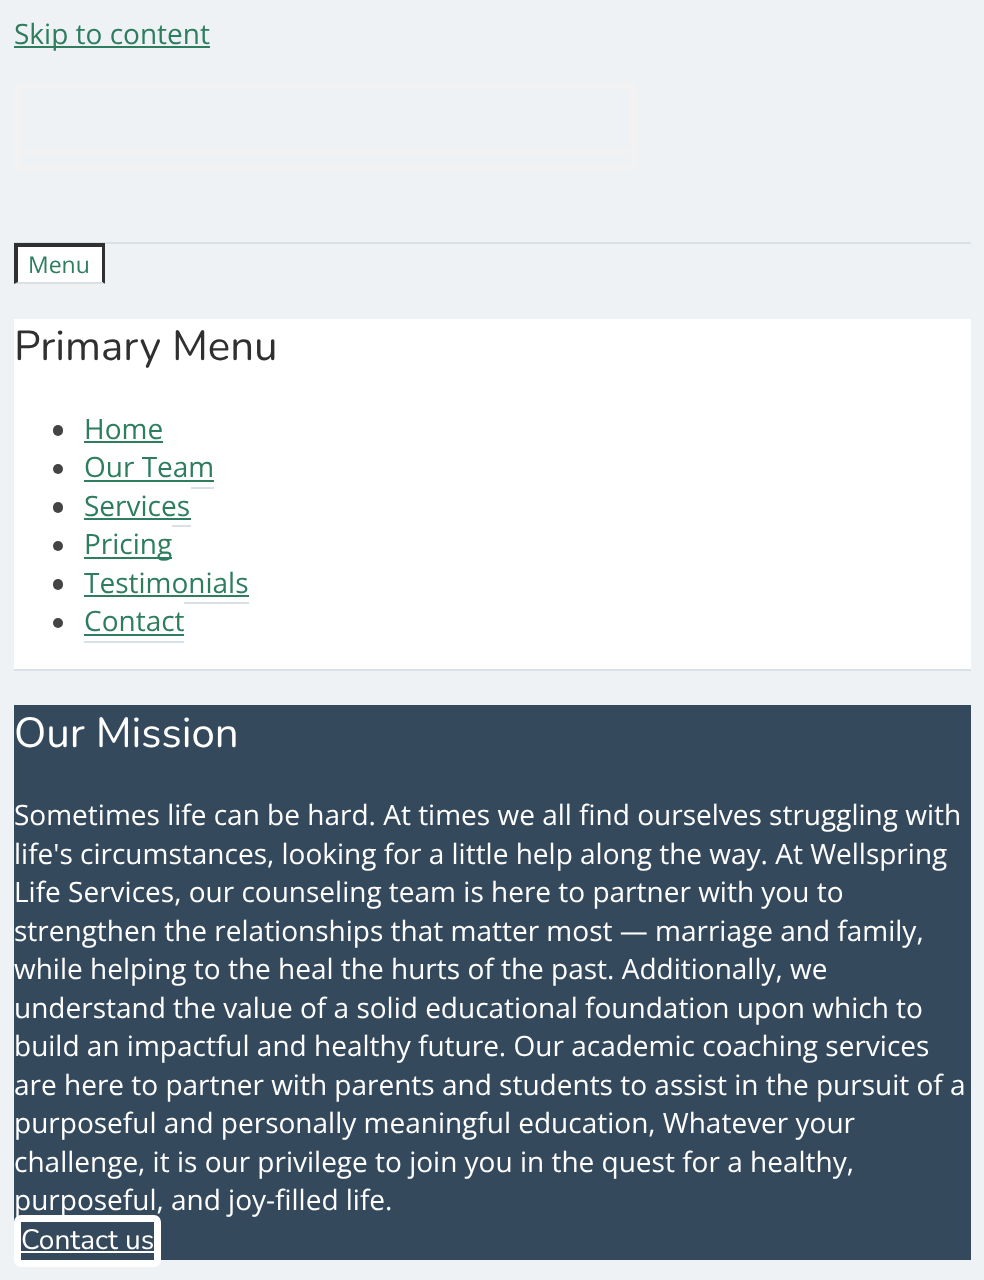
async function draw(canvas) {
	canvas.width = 984;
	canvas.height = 1280;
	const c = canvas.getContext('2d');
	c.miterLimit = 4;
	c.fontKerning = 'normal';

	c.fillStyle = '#eef2f5';
	c.fillRect(0, 0, 984, 1280);
	c.fillStyle = '#2d7d5e';
	c.fillRect(14, 46, 196, 2);
	c.font = '28px Open Sans';
	c.fillText('Skip to content', 14, 44);
	c.fillStyle = '#d9e1e7';
	c.fillRect(14, 242, 957, 2);
	c.beginPath();
	c.roundRect(17.5, 85.5, 616, 83, 3.5);
	c.strokeStyle = '#f2f2f2';
	c.lineWidth = 7;
	c.stroke();
	for (const [x, y, w, h, color] of [
		[21, 149, 609, 5, '#f2f2f2'],
		[18, 247, 84, 35, '#fff'],
		[14, 243, 91, 4, '#303030'],
	]) {
		c.fillStyle = color;
		c.fillRect(x, y, w, h);
	}
	c.beginPath();
	c.moveTo(105, 243);
	c.lineTo(105, 284);
	c.lineTo(102, 282);
	c.lineTo(102, 247);
	c.closePath();
	c.fill();
	c.fillStyle = '#d9e1e7';
	c.beginPath();
	c.moveTo(105, 284);
	c.lineTo(14, 284);
	c.lineTo(18, 282);
	c.lineTo(102, 282);
	c.closePath();
	c.fill();
	c.fillStyle = '#303030';
	c.beginPath();
	c.moveTo(14, 284);
	c.lineTo(14, 243);
	c.lineTo(18, 247);
	c.lineTo(18, 282);
	c.closePath();
	c.fill();
	c.font = '23px Open Sans';
	c.fillStyle = '#2d7d5e';
	c.fillText('Menu', 28, 273);
	c.fillStyle = '#fff';
	c.fillRect(14, 319, 957, 350);
	c.fillStyle = '#d9e1e7';
	c.fillRect(14, 669, 957, 2);
	c.font = '42px Nunito';
	c.fillStyle = '#303030';
	c.fillText('Primary Menu', 14, 360);
	c.fillStyle = '#444';
	c.beginPath();
	c.roundRect(53, 425, 10, 11, 5);
	c.fill();
	c.font = '28px Open Sans';
	c.fillStyle = '#2d7d5e';
	c.fillText('Home', 84, 439);
	c.fillRect(84, 441, 79, 2);
	c.fillStyle = '#444';
	c.beginPath();
	c.arc(58, 469, 5, 0, 2 * Math.PI);
	c.fill();
	c.fillStyle = '#2d7d5e';
	c.fillText('Our Team', 84, 477);
	c.fillStyle = '#d9e1e7';
	c.fillRect(191, 487, 23, 2);
	c.fillStyle = '#2d7d5e';
	c.fillRect(84, 480, 130, 2);
	c.fillStyle = '#444';
	c.beginPath();
	c.roundRect(53, 502, 10, 11, 5);
	c.fill();
	c.fillStyle = '#2d7d5e';
	c.fillText('Services', 84, 516);
	c.fillStyle = '#d9e1e7';
	c.fillRect(172, 525, 19, 2);
	c.fillStyle = '#2d7d5e';
	c.fillRect(84, 518, 107, 2);
	c.fillStyle = '#444';
	c.beginPath();
	c.arc(58, 546, 5, 0, 2 * Math.PI);
	c.fill();
	c.fillStyle = '#2d7d5e';
	c.fillRect(84, 557, 88, 2);
	c.fillText('Pricing', 84, 554);
	c.fillStyle = '#444';
	c.beginPath();
	c.roundRect(53, 579, 10, 11, 5);
	c.fill();
	c.fillStyle = '#2d7d5e';
	c.fillText('Testimonials', 84, 593);
	c.fillStyle = '#d9e1e7';
	c.fillRect(184, 602, 65, 2);
	c.fillStyle = '#2d7d5e';
	c.fillRect(84, 595, 165, 2);
	c.fillStyle = '#444';
	c.beginPath();
	c.arc(58, 623, 5, 0, 2 * Math.PI);
	c.fill();
	c.fillStyle = '#2d7d5e';
	c.fillText('Contact', 84, 631);
	for (const [x, y, w, h, color] of [
		[84, 641, 100, 2, '#d9e1e7'],
		[84, 634, 100, 2, '#2d7d5e'],
		[14, 705, 957, 555, '#35495d'],
	]) {
		c.fillStyle = color;
		c.fillRect(x, y, w, h);
	}
	c.font = '42px Nunito';
	c.fillStyle = '#fff';
	c.fillText('Our Mission', 14, 747);
	c.font = '28px Open Sans';
	for (const [text, x, y] of [
		['Sometimes life can be hard. At times we all find ourselves struggling with', 14, 825],
		['life\'s circumstances, looking for a little help along the way. At Wellspring', 14, 864],
		['Life Services, our counseling team is here to partner with you to', 14, 902],
		['strengthen the relationships that matter most — marriage and family,', 14, 941],
		['while helping to the heal the hurts of the past. Additionally, we', 14, 979],
		['understand the value of a solid educational foundation upon which to', 14, 1018],
		['build an impactful and healthy future. Our academic coaching services', 14, 1056],
		['are here to partner with parents and students to assist in the pursuit of a', 14, 1095],
		['purposeful and personally meaningful education, Whatever your', 14, 1133],
		['challenge, it is our privilege to join you in the quest for a healthy,', 14, 1172],
		['purposeful, and joy-filled life.', 14, 1210],
	]) {
		c.fillText(text, x, y);
	}
	c.beginPath();
	c.roundRect(17.5, 1218.5, 140, 45, 3.5);
	c.strokeStyle = '#fff';
	c.stroke();
	c.font = '28px Nunito';
	c.fillText('Contact us', 21, 1249);
	c.fillRect(21, 1251, 133, 2);
}

draw(document.querySelector('canvas'));
